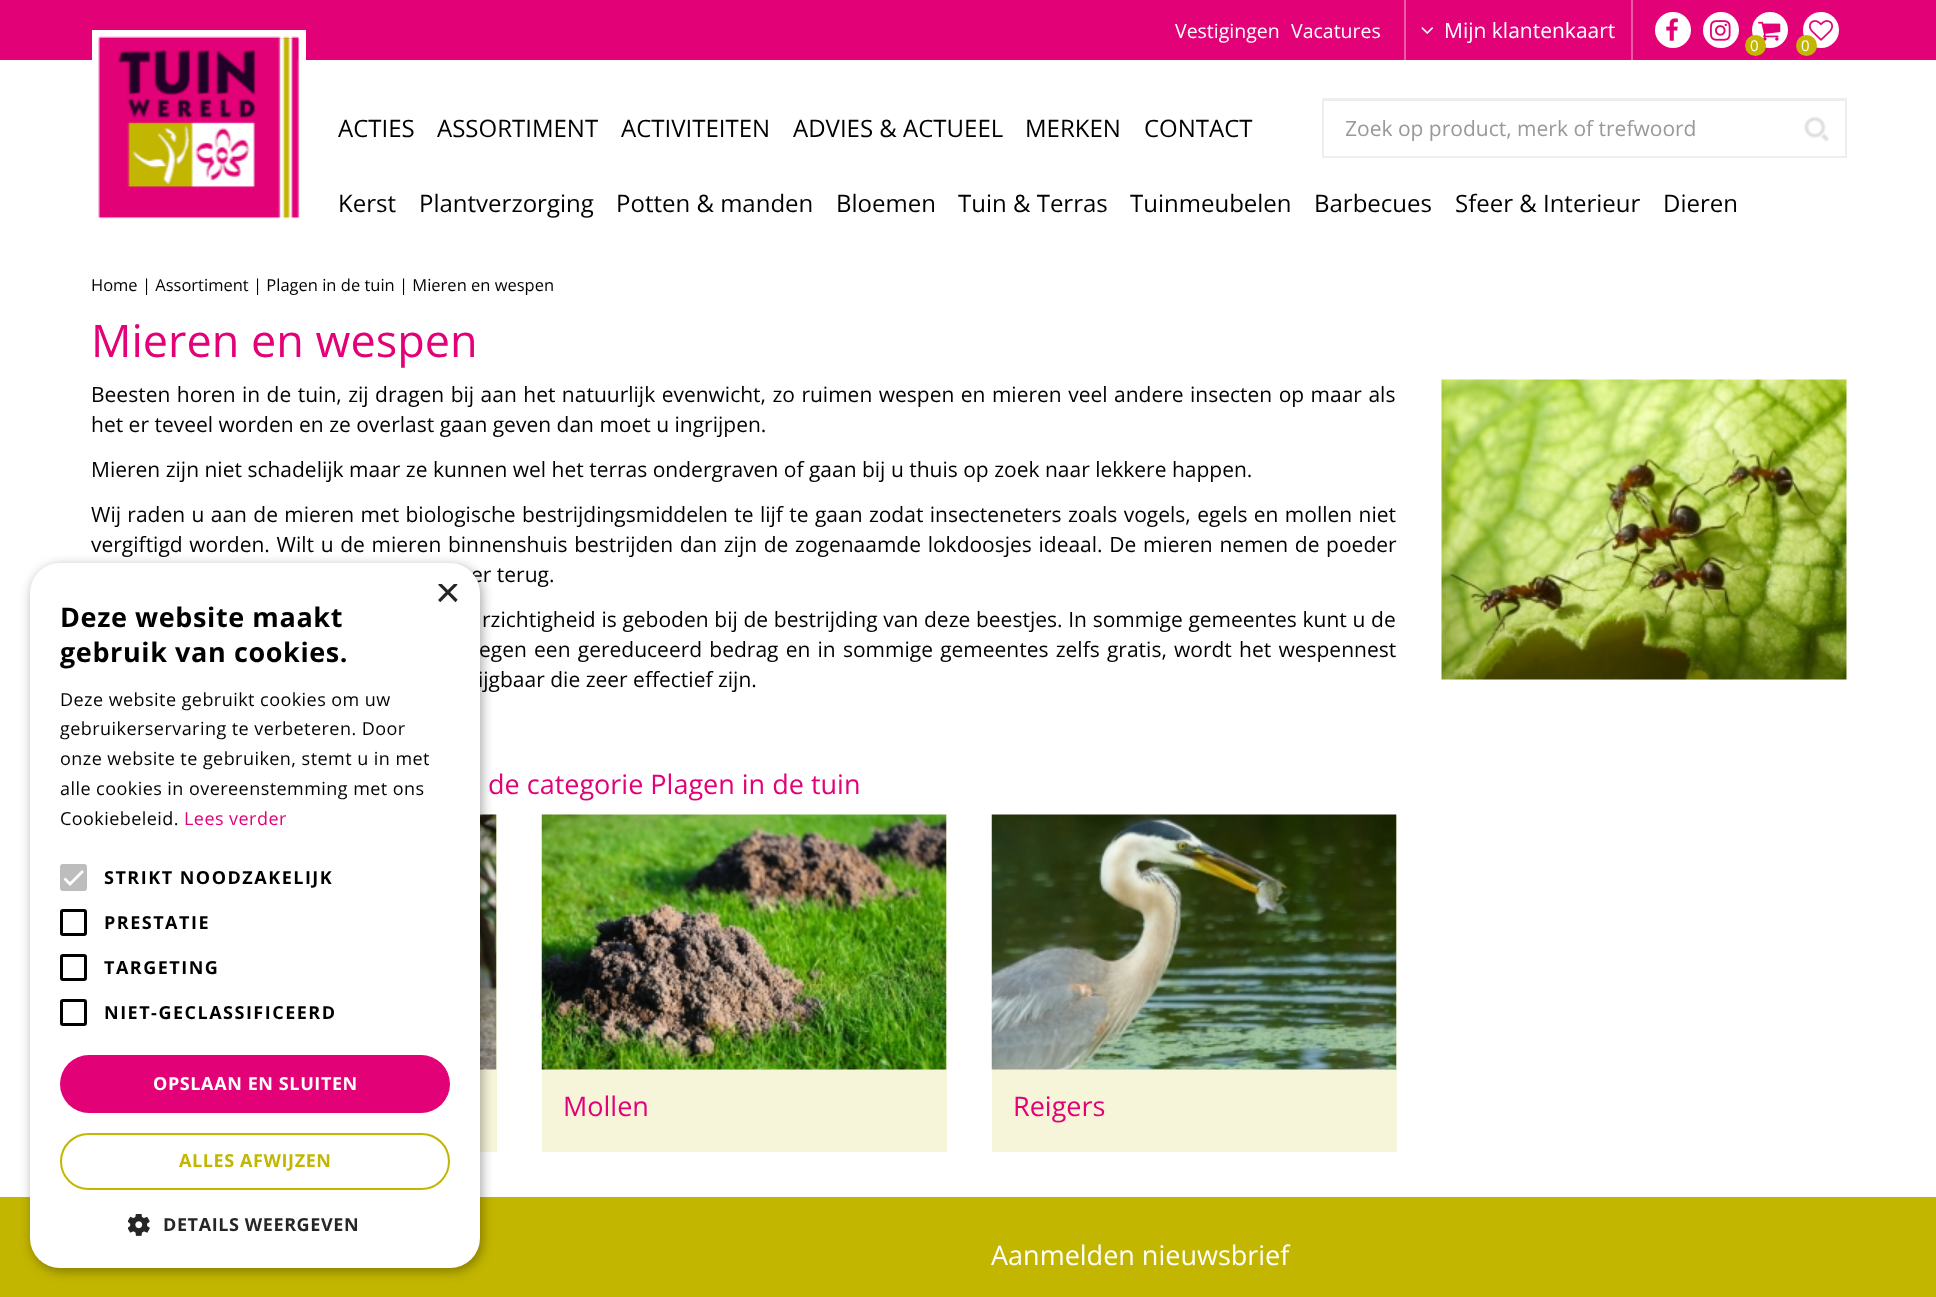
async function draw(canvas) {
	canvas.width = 1936;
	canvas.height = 1297;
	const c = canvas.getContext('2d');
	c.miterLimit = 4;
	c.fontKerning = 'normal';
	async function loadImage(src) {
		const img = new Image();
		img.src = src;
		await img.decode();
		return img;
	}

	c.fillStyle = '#fff';
	c.fillRect(0, 0, 1936, 1297);
	c.fillStyle = '#e20177';
	c.fillRect(0, 0, 1936, 60);
	c.strokeStyle = '#fff';
	c.lineWidth = 8;
	c.strokeRect(96, 34, 206, 187);
	c.drawImage(await loadImage('img1.png'), 98, 36, 202, 183);
	c.font = '24px Open Sans';
	c.fillStyle = '#000';
	for (const [text, x, y] of [
		['ACTIES', 338, 137],
		['ASSORTIMENT', 437, 137],
		['ACTIVITEITEN', 621, 137],
		['ADVIES & ACTUEEL', 793, 137],
		['MERKEN', 1025, 137],
		['CONTACT', 1144, 137],
	]) {
		c.fillText(text, x, y);
	}
	c.font = '19.5px Open Sans';
	c.fillStyle = '#fff';
	c.fillText('Vestigingen', 1175, 38);
	c.fillText('Vacatures', 1291, 38);
	c.fillStyle = '#ec5aa7';
	c.fillRect(1631, 0, 2, 60);
	c.fillRect(1404, 0, 2, 60);
	c.drawImage(await loadImage('img2.png'), 1421, 27, 12, 7);
	c.font = '21px Open Sans';
	c.fillStyle = '#fff';
	c.fillText('Mijn klantenkaart', 1444, 38);
	c.beginPath();
	c.arc(1673, 30, 18, 0, 2 * Math.PI);
	c.fill();
	c.drawImage(await loadImage('img3.png'), 1666, 18, 12, 23);
	c.beginPath();
	c.arc(1721, 30, 18, 0, 2 * Math.PI);
	c.fill();
	c.drawImage(await loadImage('img4.png'), 1710, 20, 21, 21);
	c.beginPath();
	c.arc(1770, 30, 18, 0, 2 * Math.PI);
	c.fill();
	c.drawImage(await loadImage('img5.png'), 1758, 21, 23, 20);
	c.fillStyle = '#c3b600';
	c.beginPath();
	c.arc(1755.5, 45.5, 10.5, 0, 2 * Math.PI);
	c.fill();
	c.font = '15px Open Sans';
	c.fillStyle = '#fff';
	c.fillText('0', 1750, 51);
	c.beginPath();
	c.arc(1821, 30, 18, 0, 2 * Math.PI);
	c.fill();
	c.drawImage(await loadImage('img6.png'), 1809, 20, 24, 21);
	c.fillStyle = '#c3b600';
	c.beginPath();
	c.arc(1806.5, 45.5, 10.5, 0, 2 * Math.PI);
	c.fill();
	c.fillStyle = '#fff';
	c.fillText('0', 1801, 51);
	c.fillStyle = '#ececec';
	c.fillRect(1323, 100, 522, 1);
	c.strokeStyle = '#eee';
	c.lineWidth = 2;
	c.strokeRect(1323, 99, 523, 58);
	c.save();
	c.beginPath();
	c.rect(1346, 114, 477, 29);
	c.clip();
	c.font = '21px Open Sans';
	c.fillStyle = '#999';
	c.fillText('Zoek op product, merk of trefwoord', 1345, 136);
	c.restore();
	c.drawImage(await loadImage('img7.png'), 1804, 117, 25, 25);
	c.font = '24px Open Sans';
	c.fillStyle = '#000';
	for (const [text, x, y] of [
		['Kerst', 338, 212],
		['Plantverzorging', 419, 212],
		['Potten & manden', 616, 212],
		['Bloemen', 836, 212],
		['Tuin & Terras', 958, 212],
		['Tuinmeubelen', 1130, 212],
		['Barbecues', 1314, 212],
		['Sfeer & Interieur', 1455, 212],
		['Dieren', 1663, 212],
	]) {
		c.fillText(text, x, y);
	}
	c.font = '45px Open Sans';
	c.fillStyle = '#e20177';
	c.fillText('Mieren en wespen', 91, 357);
	c.wordSpacing = '1px';
	c.font = '21px Open Sans';
	c.fillStyle = '#000';
	c.fillText('Beesten horen in de tuin, zij dragen bij aan het natuurlijk evenwicht, zo ruimen wespen en mieren veel andere insecten op maar als', 91, 402);
	c.wordSpacing = '0px';
	c.fillText('het er teveel worden en ze overlast gaan geven dan moet u ingrijpen.', 91, 432);
	c.drawImage(await loadImage('img8.png'), 1441, 379, 406, 301);
	c.fillText('Mieren zijn niet schadelijk maar ze kunnen wel het terras ondergraven of gaan bij u thuis op zoek naar lekkere happen.', 91, 477);
	c.wordSpacing = '0.9px';
	c.fillText('Wij raden u aan de mieren met biologische bestrijdingsmiddelen te lijf te gaan zodat insecteneters zoals vogels, egels en mollen niet', 91, 522);
	c.wordSpacing = '1.2px';
	c.fillText('vergiftigd worden. Wilt u de mieren binnenshuis bestrijden dan zijn de zogenaamde lokdoosjes ideaal. De mieren nemen de poeder', 91, 552);
	c.wordSpacing = '0px';
	c.fillText('er terug.', 471, 582);
	c.wordSpacing = '0.25px';
	c.fillText('rzichtigheid is geboden bij de bestrijding van deze beestjes. In sommige gemeentes kunt u de', 482, 627);
	c.wordSpacing = '1.75px';
	c.fillText('egen een gereduceerd bedrag en in sommige gemeentes zelfs gratis, wordt het wespennest', 479, 657);
	c.wordSpacing = '0px';
	c.fillText('ijgbaar die zeer effectief zijn.', 478, 687);
	c.font = '27px Open Sans';
	c.fillStyle = '#e20177';
	c.fillText('de categorie Plagen in de tuin', 488, 794);
	c.fillStyle = '#f6f4d9';
	c.fillRect(480, 815, 17, 337);
	c.drawImage(await loadImage('img9.png'), 480, 814, 17, 256);
	c.fillRect(542, 815, 405, 337);
	c.drawImage(await loadImage('img10.png'), 541, 814, 406, 256);
	c.fillStyle = '#e20177';
	c.fillText('Mollen', 563, 1116);
	c.fillStyle = '#f6f4d9';
	c.fillRect(992, 815, 405, 337);
	c.drawImage(await loadImage('img11.png'), 991, 814, 406, 256);
	c.fillStyle = '#e20177';
	c.fillText('Reigers', 1013, 1116);
	c.font = '16.5px Open Sans';
	c.fillStyle = '#000';
	c.fillText('Home | Assortiment | Plagen in de tuin | Mieren en wespen', 91, 291);
	c.fillStyle = '#c3b600';
	c.fillRect(0, 1197, 1936, 100);
	c.font = '27px Open Sans';
	c.fillStyle = '#fff';
	c.fillText('Aanmelden nieuwsbrief', 991, 1265);
	c.fillStyle = '#00000059';
	c.filter = 'blur(6px)';
	c.beginPath();
	c.roundRect(32, 566, 450, 705, 30);
	c.fill();
	c.filter = 'none';
	c.fillStyle = '#fff';
	c.beginPath();
	c.roundRect(30, 563, 450, 705, 30);
	c.fill();
	c.save();
	c.beginPath();
	c.rect(435, 584, 23, 22);
	c.clip();
	c.font = '44px Liberation Sans';
	c.fillStyle = '#262626';
	c.fillText('×', 435, 607);
	c.restore();
	c.letterSpacing = '0.6px';
	c.font = 'bold 27px Open Sans';
	c.fillStyle = '#000';
	c.fillText('Deze website maakt', 60, 627);
	c.fillText('gebruik van cookies.', 60, 662);
	c.letterSpacing = '0.45px';
	c.font = '18px Open Sans';
	for (const [text, x, y] of [
		['Deze website gebruikt cookies om uw', 60, 706],
		['gebruikerservaring te verbeteren. Door', 60, 735],
		['onze website te gebruiken, stemt u in met', 60, 765],
		['alle cookies in overeenstemming met ons', 60, 795],
		['Cookiebeleid.', 60, 825],
	]) {
		c.fillText(text, x, y);
	}
	c.fillStyle = '#e20177';
	c.fillText('Lees verder', 184, 825);
	c.fillStyle = '#bdbdbd';
	c.beginPath();
	c.roundRect(60, 864, 27, 27, 3);
	c.fill();
	c.beginPath();
	c.moveTo(64.5, 878.5);
	c.lineTo(70, 884);
	c.lineTo(83, 871);
	c.strokeStyle = '#fff';
	c.lineWidth = 2.7;
	c.stroke();
	c.letterSpacing = '1.5px';
	c.font = 'bold 18px Open Sans';
	c.fillStyle = '#000';
	c.fillText('STRIKT NOODZAKELIJK', 104, 884);
	c.beginPath();
	c.roundRect(61.5, 910.5, 24, 24, 1.5);
	c.strokeStyle = '#000';
	c.lineWidth = 3;
	c.stroke();
	c.fillText('PRESTATIE', 104, 929);
	c.beginPath();
	c.roundRect(61.5, 955.5, 24, 24, 1.5);
	c.stroke();
	c.fillText('TARGETING', 104, 974);
	c.beginPath();
	c.roundRect(61.5, 1000.5, 24, 24, 1.5);
	c.stroke();
	c.fillText('NIET-GECLASSIFICEERD', 104, 1019);
	c.fillStyle = '#e20177';
	c.beginPath();
	c.roundRect(60, 1055, 390, 58, 29);
	c.fill();
	c.letterSpacing = '0.6px';
	c.fillStyle = '#fff';
	c.fillText('OPSLAAN EN SLUITEN', 153, 1090);
	c.beginPath();
	c.roundRect(61, 1134, 388, 55, 27.5);
	c.strokeStyle = '#c3b600';
	c.lineWidth = 2;
	c.stroke();
	c.fillStyle = '#c3b600';
	c.fillText('ALLES AFWIJZEN', 179, 1167);
	c.drawImage(await loadImage('img12.png'), 128, 1214, 22, 22);
	c.fillStyle = '#262626';
	c.fillText('DETAILS WEERGEVEN', 163, 1231);
}

draw(document.querySelector('canvas'));
